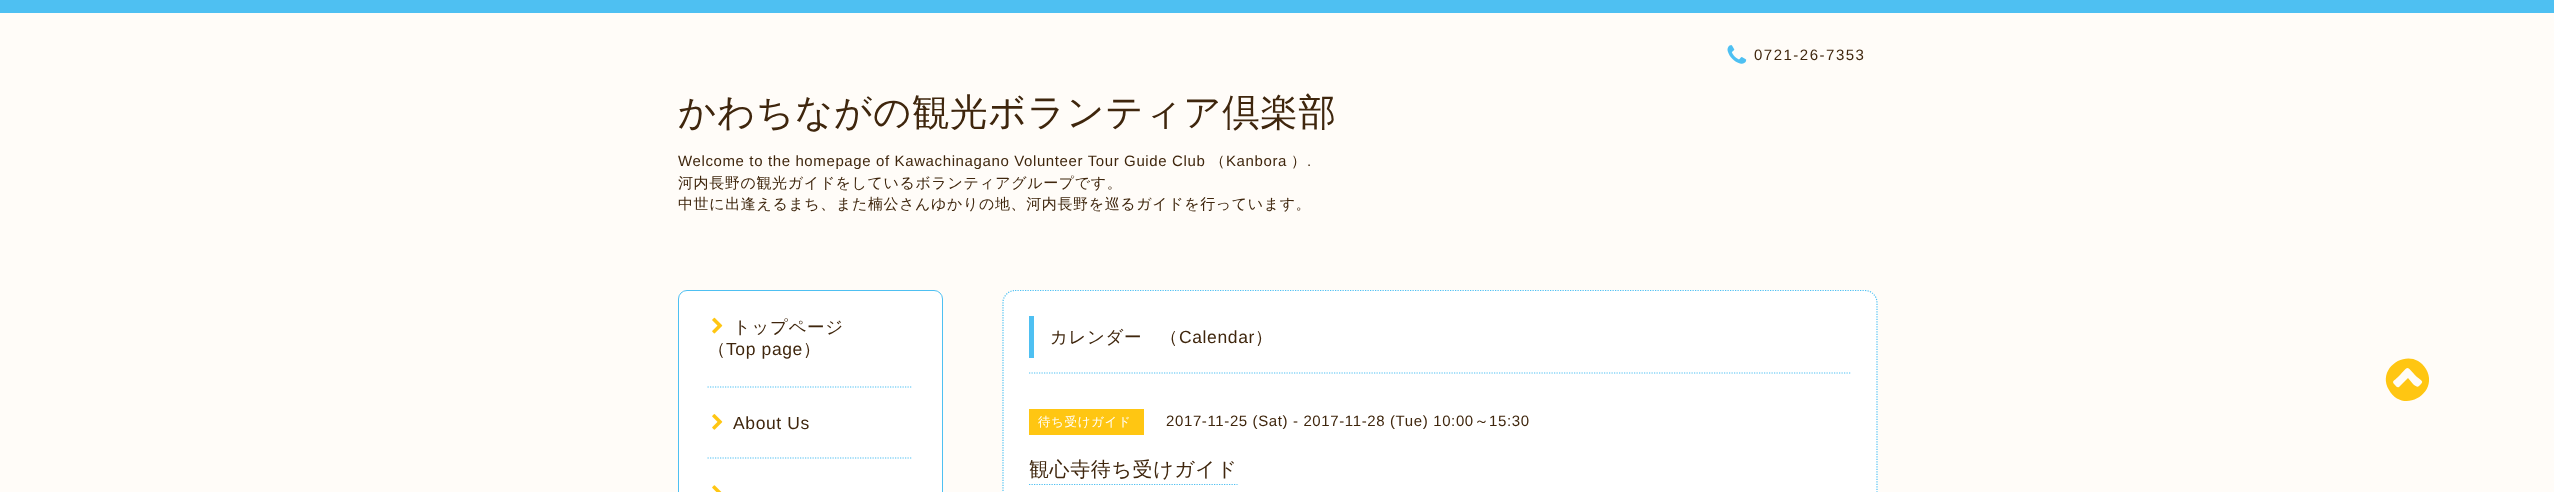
async function draw(canvas) {
	canvas.width = 2554;
	canvas.height = 492;
	const c = canvas.getContext('2d');
	c.miterLimit = 4;
	c.fontKerning = 'normal';
	async function loadImage(src) {
		const img = new Image();
		img.src = src;
		await img.decode();
		return img;
	}

	c.fillStyle = '#fffcf8';
	c.fillRect(0, 0, 2554, 492);
	c.fillStyle = '#4ec0f2';
	c.fillRect(0, 0, 2554, 13);
	c.drawImage(await loadImage('img1.png'), 1727, 45, 20, 19);
	c.letterSpacing = '1.5px';
	c.font = '15px Liberation Sans';
	c.fillStyle = '#3f260d';
	c.fillText('0721-26-7353', 1754, 60);
	c.letterSpacing = '0.62px';
	c.font = '500 37.5px WenQuanYi Zen Hei';
	c.fillText('かわちながの観光ボランティア倶楽部', 678, 125);
	c.font = '15px Liberation Sans';
	c.fillText('Welcome to the homepage of Kawachinagano Volunteer Tour Guide Club', 678, 166);
	c.font = '500 15px WenQuanYi Zen Hei';
	c.fillText('（', 1210, 166);
	c.font = '15px Liberation Sans';
	c.fillText('Kanbora', 1226, 166);
	c.font = '500 15px WenQuanYi Zen Hei';
	c.fillText('）', 1291, 166);
	c.font = '15px Liberation Sans';
	c.fillText('.', 1307, 166);
	c.font = '500 15px WenQuanYi Zen Hei';
	c.fillText('河内長野の観光ガイドをしているボランティアグループです。', 678, 188);
	c.fillText('中世に出逢えるまち、また楠公さんゆかりの地、河内長野を巡るガイドを行っています。', 678, 209);
	c.fillStyle = '#fff';
	c.beginPath();
	c.roundRect(678.5, 290.5, 264, 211, 8.5);
	c.fill();
	c.strokeStyle = '#4ec0f2';
	c.stroke();
	c.beginPath();
	c.moveTo(707.5, 387);
	c.lineTo(912.5, 387);
	c.lineWidth = 1.2;
	c.setLineDash([1.25, 1.25]);
	c.stroke();
	c.drawImage(await loadImage('img2.png'), 712, 317, 11, 17);
	c.font = '500 17.5px WenQuanYi Zen Hei';
	c.fillStyle = '#3f260d';
	c.fillText('トップページ', 733, 333);
	c.fillText('（', 708, 355);
	c.font = '17.5px Liberation Sans';
	c.fillText('Top page', 726, 355);
	c.font = '500 17.5px WenQuanYi Zen Hei';
	c.fillText('）', 803, 355);
	c.beginPath();
	c.moveTo(707.5, 458);
	c.lineTo(912.5, 458);
	c.stroke();
	c.drawImage(await loadImage('img3.png'), 712, 414, 11, 16);
	c.font = '17.5px Liberation Sans';
	c.fillText('About Us', 733, 429);
	c.drawImage(await loadImage('img4.png'), 712, 485, 10, 7);
	c.fillStyle = '#fff';
	c.beginPath();
	c.roundRect(1003, 290, 875, 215, 13);
	c.fill();
	c.beginPath();
	c.moveTo(1015, 290.5);
	c.lineTo(1865, 290.5);
	c.bezierCurveTo(1871.5, 290.5, 1877, 296, 1877, 302.5);
	c.lineTo(1877, 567.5);
	c.bezierCurveTo(1877, 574, 1871.5, 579.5, 1865, 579.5);
	c.lineTo(1015, 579.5);
	c.bezierCurveTo(1008.5, 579.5, 1003, 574, 1003, 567.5);
	c.lineTo(1003, 302.5);
	c.bezierCurveTo(1003, 296, 1008.5, 290.5, 1015, 290.5);
	c.closePath();
	c.stroke();
	c.fillStyle = '#4ec0f2';
	c.fillRect(1029, 316, 5, 42);
	c.font = '500 17.5px WenQuanYi Zen Hei';
	c.fillStyle = '#3f260d';
	c.fillText('カレンダー　（', 1050, 343);
	c.font = '17.5px Liberation Sans';
	c.fillText('Calendar', 1179, 343);
	c.font = '500 17.5px WenQuanYi Zen Hei';
	c.fillText('）', 1255, 343);
	c.beginPath();
	c.moveTo(1029, 373);
	c.lineTo(1851, 373);
	c.stroke();
	c.fillStyle = '#ffc612';
	c.fillRect(1029, 409, 115, 26);
	c.font = '500 12.5px WenQuanYi Zen Hei';
	c.fillStyle = '#fff';
	c.fillText('待ち受けガイド', 1038, 426);
	c.font = '15px Liberation Sans';
	c.fillStyle = '#3f260d';
	c.fillText('2017-11-25 (Sat) - 2017-11-28 (Tue) 10:00', 1166, 426);
	c.font = '500 15px WenQuanYi Zen Hei';
	c.fillText('～', 1474, 426);
	c.font = '15px Liberation Sans';
	c.fillText('15:30', 1489, 426);
	c.font = '500 20px WenQuanYi Zen Hei';
	c.fillText('観心寺待ち受けガイド', 1029, 476);
	c.beginPath();
	c.moveTo(1029, 484.5);
	c.lineTo(1237.5, 484.5);
	c.stroke();
	c.fillStyle = '#ffc612';
	c.beginPath();
	c.moveTo(2419, 386);
	c.bezierCurveTo(2424, 381, 2423, 382, 2417, 377);
	c.bezierCurveTo(2405, 365, 2410, 365, 2398, 377);
	c.bezierCurveTo(2394, 381, 2391, 381, 2395, 385);
	c.bezierCurveTo(2396, 386, 2397, 388, 2399, 387);
	c.lineTo(2408, 378);
	c.lineTo(2413, 384);
	c.bezierCurveTo(2414, 385, 2417, 388, 2419, 386);
	c.closePath();
	c.moveTo(2426, 369);
	c.bezierCurveTo(2440, 393, 2403, 415, 2389, 390);
	c.bezierCurveTo(2375, 366, 2412, 345, 2426, 369);
	c.closePath();
	c.fill();
}

draw(document.querySelector('canvas'));
